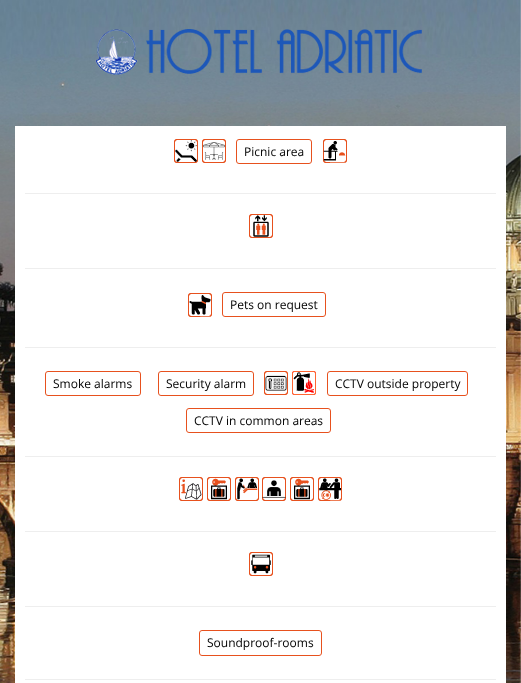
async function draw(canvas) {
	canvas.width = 521;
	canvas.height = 683;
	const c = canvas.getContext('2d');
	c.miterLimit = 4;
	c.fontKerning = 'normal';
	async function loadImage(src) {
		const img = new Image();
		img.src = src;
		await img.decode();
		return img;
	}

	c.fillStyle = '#fff';
	c.fillRect(0, 0, 521, 683);
	c.drawImage(await loadImage('img1.png'), 0, 0, 521, 683);
	c.drawImage(await loadImage('img2.png'), 95, 29, 327, 46);
	c.fillRect(15, 126, 491, 557);
	c.drawImage(await loadImage('img3.png'), 174, 139, 24, 24);
	c.drawImage(await loadImage('img4.png'), 202, 139, 24, 24);
	c.beginPath();
	c.roundRect(236.5, 139.5, 75, 24, 2.5);
	c.strokeStyle = '#e7511e';
	c.stroke();
	c.font = '12px Open Sans';
	c.fillStyle = '#000';
	c.fillText('Picnic area', 244, 156);
	c.drawImage(await loadImage('img5.png'), 323, 139, 24, 24);
	c.fillStyle = '#eee';
	c.fillRect(25, 193, 471, 1);
	c.drawImage(await loadImage('img6.png'), 249, 214, 24, 24);
	c.fillRect(25, 268, 471, 1);
	c.drawImage(await loadImage('img7.png'), 188, 293, 24, 24);
	c.beginPath();
	c.roundRect(222.5, 292.5, 103, 24, 2.5);
	c.stroke();
	c.fillStyle = '#000';
	c.fillText('Pets on request', 230, 309);
	c.fillStyle = '#eee';
	c.fillRect(25, 347, 471, 1);
	c.beginPath();
	c.roundRect(45.5, 371.5, 95, 24, 2.5);
	c.stroke();
	c.fillStyle = '#000';
	c.fillText('Smoke alarms', 53, 388);
	c.beginPath();
	c.roundRect(158.5, 371.5, 95, 24, 2.5);
	c.stroke();
	c.fillText('Security alarm', 166, 388);
	c.drawImage(await loadImage('img8.png'), 264, 371, 24, 24);
	c.drawImage(await loadImage('img9.png'), 292, 371, 24, 24);
	c.beginPath();
	c.roundRect(327.5, 371.5, 140, 24, 2.5);
	c.stroke();
	c.fillText('CCTV outside property', 335, 388);
	c.beginPath();
	c.roundRect(186.5, 408.5, 144, 24, 2.5);
	c.stroke();
	c.fillText('CCTV in common areas', 194, 425);
	c.fillStyle = '#eee';
	c.fillRect(25, 456, 471, 1);
	c.drawImage(await loadImage('img10.png'), 179, 477, 24, 24);
	c.drawImage(await loadImage('img11.png'), 207, 477, 24, 24);
	c.drawImage(await loadImage('img12.png'), 235, 477, 24, 24);
	c.drawImage(await loadImage('img13.png'), 262, 477, 24, 24);
	c.drawImage(await loadImage('img11.png'), 290, 477, 24, 24);
	c.drawImage(await loadImage('img14.png'), 318, 477, 24, 24);
	c.fillRect(25, 531, 471, 1);
	c.drawImage(await loadImage('img15.png'), 249, 552, 24, 24);
	c.fillRect(25, 606, 471, 1);
	c.beginPath();
	c.roundRect(199.5, 630.5, 122, 25, 2.5);
	c.stroke();
	c.fillStyle = '#000';
	c.fillText('Soundproof-rooms', 207, 647);
	c.fillStyle = '#eee';
	c.fillRect(25, 679, 471, 1);
}

draw(document.querySelector('canvas'));
